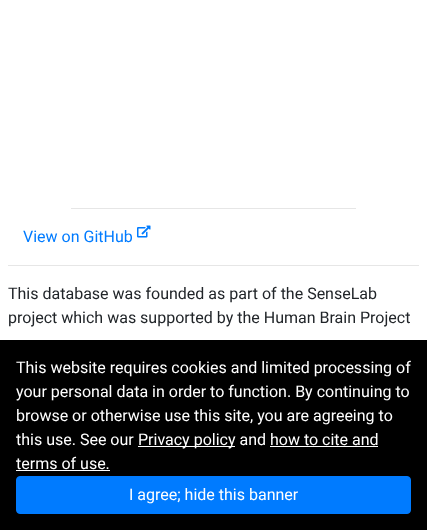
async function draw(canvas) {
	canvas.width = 427;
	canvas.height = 530;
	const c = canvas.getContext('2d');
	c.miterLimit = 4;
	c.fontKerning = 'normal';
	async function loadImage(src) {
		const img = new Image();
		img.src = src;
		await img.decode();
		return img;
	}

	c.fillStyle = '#fff';
	c.fillRect(0, 0, 427, 530);
	c.fillStyle = '#e6e6e6';
	c.fillRect(71, 208, 285, 1);
	c.font = '16px Roboto';
	c.fillStyle = '#007bff';
	c.fillText('View on GitHub', 23, 242);
	c.drawImage(await loadImage('img1.png'), 137, 225, 14, 13);
	c.fillStyle = '#e6e6e6';
	c.fillRect(8, 265, 411, 1);
	c.fillStyle = '#212529';
	c.fillText('This database was founded as part of the SenseLab', 8, 299);
	c.fillText('project which was supported by the Human Brain Project', 8, 323);
	c.fillStyle = '#000';
	c.fillRect(0, 340, 427, 190);
	c.fillStyle = '#fff';
	for (const [text, x, y] of [
		['This website requires cookies and limited processing of', 16, 373],
		['your personal data in order to function. By continuing to', 16, 397],
		['browse or otherwise use this site, you are agreeing to', 16, 421],
		['this use. See our', 16, 445],
	]) {
		c.fillText(text, x, y);
	}
	c.fillRect(138, 446, 97, 1);
	c.fillText('Privacy policy and how to cite and', 138, 445);
	c.fillText('terms of use.', 16, 469);
	c.fillRect(270, 446, 108, 1);
	c.fillRect(16, 470, 94, 1);
	c.fillStyle = '#007bff';
	c.beginPath();
	c.roundRect(16.5, 476.5, 394, 37, 3.5);
	c.fill();
	c.strokeStyle = '#007bff';
	c.stroke();
	c.fillStyle = '#fff';
	c.fillText('I agree; hide this banner', 129, 500);
}

draw(document.querySelector('canvas'));
